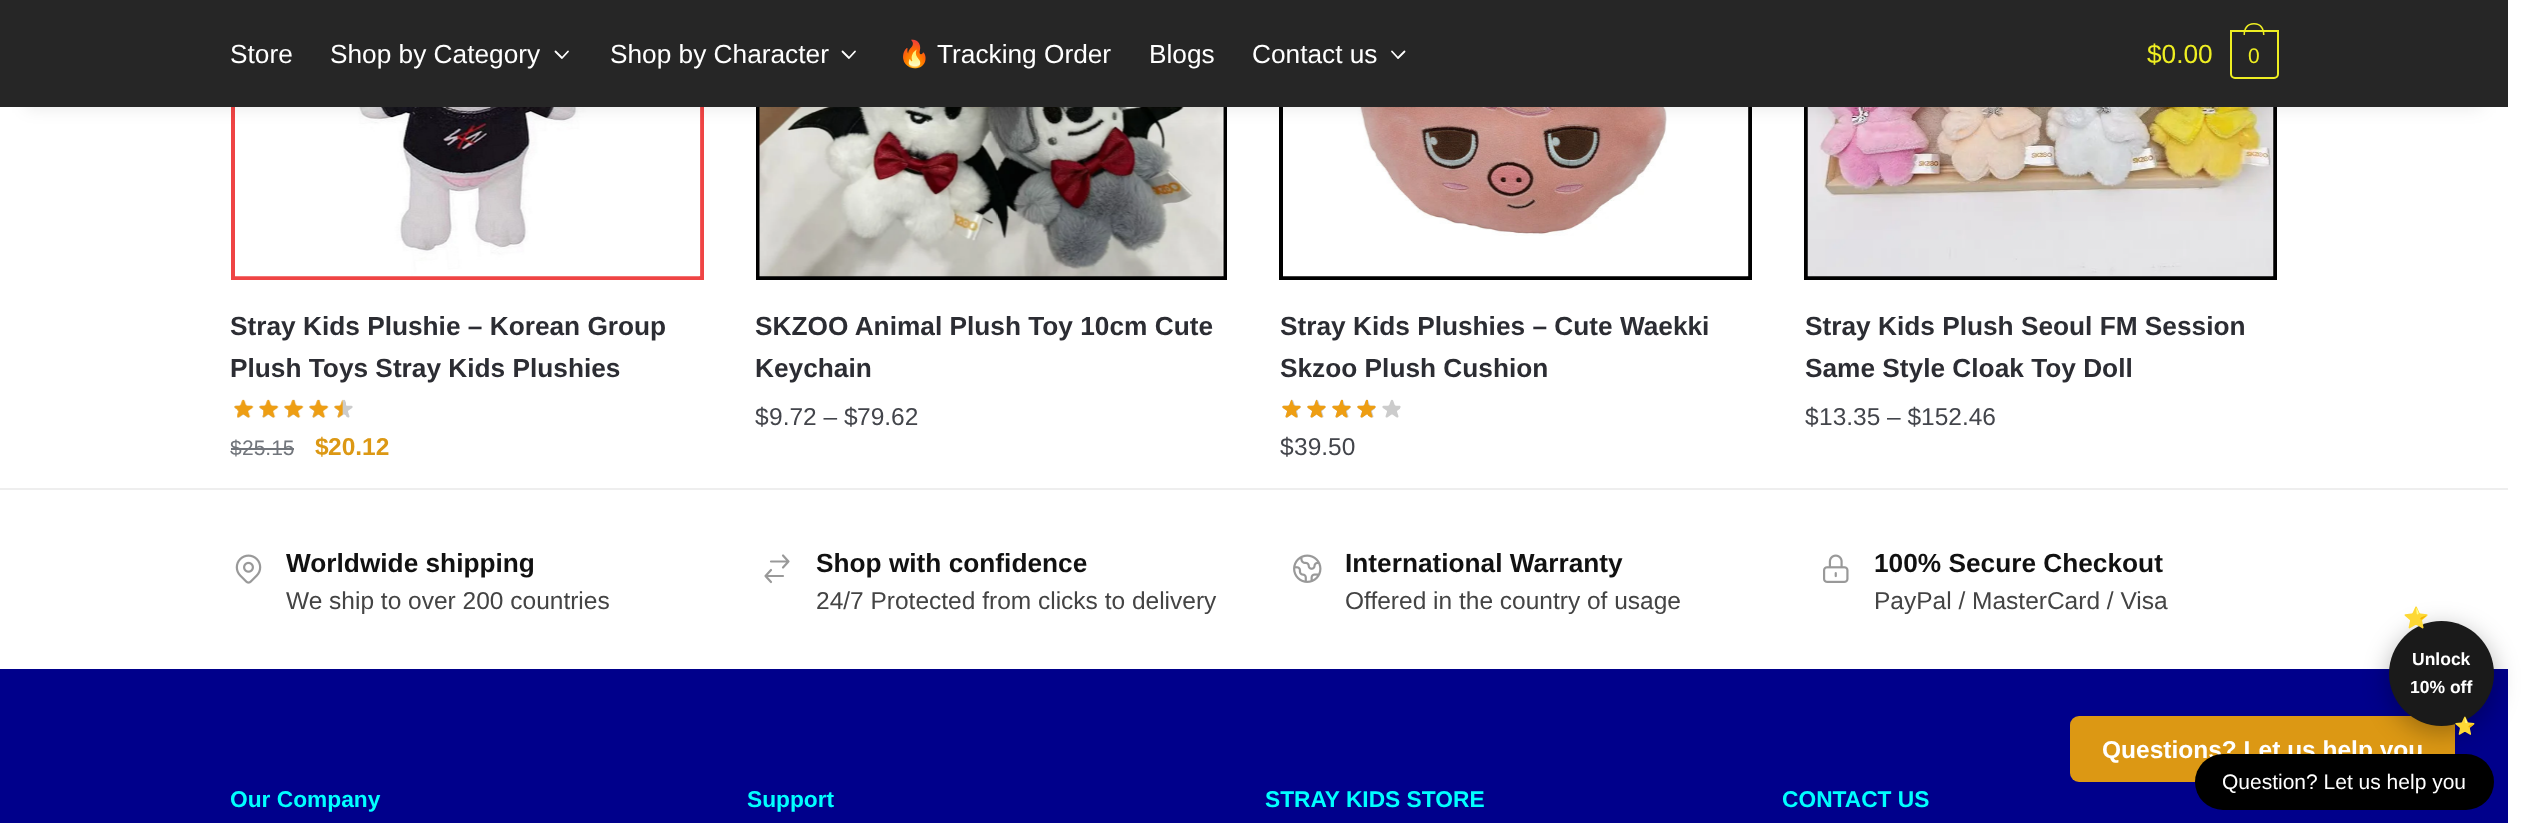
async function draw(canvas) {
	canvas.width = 2533;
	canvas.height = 823;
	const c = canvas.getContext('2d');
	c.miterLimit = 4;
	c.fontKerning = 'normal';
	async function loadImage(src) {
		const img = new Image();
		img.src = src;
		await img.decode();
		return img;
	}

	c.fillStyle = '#fff';
	c.fillRect(0, 0, 2533, 823);
	c.strokeStyle = '#ef4444';
	c.lineWidth = 4;
	c.strokeRect(233, -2, 469, 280);
	c.drawImage(await loadImage('img1.png'), 235, 107, 466, 170);
	c.strokeStyle = '#000';
	c.strokeRect(758, -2, 467, 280);
	c.drawImage(await loadImage('img4.png'), 759, 107, 465, 170);
	c.strokeRect(1281, -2, 469, 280);
	c.drawImage(await loadImage('img5.png'), 1283, 107, 466, 170);
	c.strokeRect(1806, -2, 469, 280);
	c.drawImage(await loadImage('img8.png'), 1807, 107, 467, 170);
	c.fillStyle = '#0000001a';
	c.filter = 'blur(9px)';
	c.beginPath();
	c.rect(26, 53, 2456, 54);
	c.fill();
	c.filter = 'none';
	c.fillStyle = '#262626';
	c.fillRect(0, 0, 2508, 107);
	c.font = '26.25px Liberation Sans';
	c.fillStyle = '#fff';
	c.fillText('Store', 230, 63);
	c.fillText('Shop by Category', 330, 63);
	c.beginPath();
	c.moveTo(568, 51.5);
	c.lineTo(562, 58);
	c.lineTo(555.5, 51.5);
	c.strokeStyle = '#fff';
	c.lineWidth = 1.8;
	c.lineCap = 'round';
	c.lineJoin = 'round';
	c.stroke();
	c.fillText('Shop by Character', 610, 63);
	c.beginPath();
	c.moveTo(855, 51.5);
	c.lineTo(849, 58);
	c.lineTo(842.5, 51.5);
	c.stroke();
	c.font = '26.25px Noto Color Emoji';
	c.fillText('🔥', 898, 63);
	c.font = '26.25px Liberation Sans';
	for (const [text, x, y] of [
		['Tracking Order', 937, 63],
		['Blogs', 1149, 63],
		['Contact us', 1252, 63],
	]) {
		c.fillText(text, x, y);
	}
	c.beginPath();
	c.moveTo(1404.5, 51.5);
	c.lineTo(1398, 58);
	c.lineTo(1392, 51.5);
	c.stroke();
	c.fillStyle = '#ee2';
	c.fillText('$0.00', 2147, 63);
	c.beginPath();
	c.roundRect(2231, 31, 47, 47, [0, 0, 4, 4]);
	c.strokeStyle = '#ee2';
	c.lineWidth = 2;
	c.lineJoin = 'miter';
	c.stroke();
	c.beginPath();
	c.moveTo(2254, 23);
	c.bezierCurveTo(2261.5, 23, 2264.5, 28.5, 2264.5, 35);
	c.lineTo(2243.5, 35);
	c.bezierCurveTo(2243.5, 28.5, 2246.5, 23, 2254, 23);
	c.closePath();
	c.moveTo(2254, 24.5);
	c.bezierCurveTo(2260.5, 24.5, 2263, 29.5, 2263, 35);
	c.lineTo(2245, 35);
	c.bezierCurveTo(2245, 29.5, 2247.5, 24.5, 2254, 24.5);
	c.closePath();
	c.fill('evenodd');
	c.letterSpacing = '-1px';
	c.font = '21px Liberation Sans';
	c.fillText('0', 2248, 63);
	c.letterSpacing = '0px';
	c.font = 'bold 26.25px Liberation Sans';
	c.fillStyle = '#2c2d33';
	c.fillText('Stray Kids Plushie – Korean Group', 230, 335);
	c.fillText('Plush Toys Stray Kids Plushies', 230, 377);
	c.drawImage(await loadImage('img2.png'), 234, 399, 119, 19);
	c.drawImage(await loadImage('img3.png'), 234, 399, 109, 19);
	c.font = '21px Liberation Sans';
	c.fillStyle = '#72767c';
	c.fillText('$', 230, 455);
	c.fillText('25.15', 242, 455);
	c.fillRect(242, 448, 52, 2);
	c.fillRect(231, 448, 11, 2);
	c.font = 'bold 24.5px Liberation Sans';
	c.fillStyle = '#dc9814';
	c.fillText('$', 315, 455);
	c.fillText('20.12', 328, 455);
	c.font = 'bold 26.25px Liberation Sans';
	c.fillStyle = '#2c2d33';
	c.fillText('SKZOO Animal Plush Toy 10cm Cute', 755, 335);
	c.fillText('Keychain', 755, 377);
	c.font = '24.5px Liberation Sans';
	c.fillStyle = '#43454b';
	for (const [text, x, y] of [
		['$', 755, 425],
		['9.72 – $', 769, 425],
		['79.62', 857, 425],
	]) {
		c.fillText(text, x, y);
	}
	c.font = 'bold 26.25px Liberation Sans';
	c.fillStyle = '#2c2d33';
	c.fillText('Stray Kids Plushies – Cute Waekki', 1280, 335);
	c.fillText('Skzoo Plush Cushion', 1280, 377);
	c.drawImage(await loadImage('img6.png'), 1282, 399, 119, 19);
	c.drawImage(await loadImage('img7.png'), 1282, 399, 94, 19);
	c.font = '24.5px Liberation Sans';
	c.fillStyle = '#43454b';
	c.fillText('$', 1280, 455);
	c.fillText('39.50', 1294, 455);
	c.font = 'bold 26.25px Liberation Sans';
	c.fillStyle = '#2c2d33';
	c.fillText('Stray Kids Plush Seoul FM Session', 1805, 335);
	c.fillText('Same Style Cloak Toy Doll', 1805, 377);
	c.font = '24.5px Liberation Sans';
	c.fillStyle = '#43454b';
	for (const [text, x, y] of [
		['$', 1805, 425],
		['13.35 – $', 1819, 425],
		['152.46', 1921, 425],
	]) {
		c.fillText(text, x, y);
	}
	c.fillStyle = '#00008b';
	c.fillRect(0, 669, 2508, 154);
	c.fillStyle = '#dc9814';
	c.beginPath();
	c.roundRect(2070, 716, 385, 66, 9);
	c.fill();
	c.font = 'bold 24.5px Liberation Sans';
	c.fillStyle = '#fff';
	c.fillText('Questions? Let us help you', 2102, 758);
	c.fillStyle = '#eee';
	c.fillRect(0, 488, 2508, 2);
	c.font = 'bold 26.25px Liberation Sans';
	c.fillStyle = '#111';
	c.fillText('Worldwide shipping', 286, 572);
	c.drawImage(await loadImage('img9.png'), 235, 554, 27, 30);
	c.font = '24.5px Liberation Sans';
	c.fillStyle = '#444';
	c.fillText('We ship to over 200 countries', 286, 609);
	c.font = 'bold 26.25px Liberation Sans';
	c.fillStyle = '#111';
	c.fillText('Shop with confidence', 816, 572);
	c.beginPath();
	c.moveTo(771, 561.5);
	c.lineTo(788.5, 561.5);
	c.moveTo(788.5, 561.5);
	c.lineTo(783, 555.5);
	c.moveTo(788.5, 561.5);
	c.lineTo(783, 567.5);
	c.moveTo(783, 576);
	c.lineTo(765.5, 576);
	c.moveTo(765.5, 576);
	c.lineTo(771, 582);
	c.moveTo(765.5, 576);
	c.lineTo(771, 570);
	c.strokeStyle = '#999';
	c.lineWidth = 2.2;
	c.lineJoin = 'round';
	c.stroke();
	c.font = '24.5px Liberation Sans';
	c.fillStyle = '#444';
	c.fillText('24/7 Protected from clicks to delivery', 816, 609);
	c.font = 'bold 26.25px Liberation Sans';
	c.fillStyle = '#111';
	c.fillText('International Warranty', 1345, 572);
	c.drawImage(await loadImage('img10.png'), 1293, 554, 29, 29);
	c.font = '24.5px Liberation Sans';
	c.fillStyle = '#444';
	c.fillText('Offered in the country of usage', 1345, 609);
	c.font = 'bold 26.25px Liberation Sans';
	c.fillStyle = '#111';
	c.fillText('100% Secure Checkout', 1874, 572);
	c.drawImage(await loadImage('img11.png'), 1823, 554, 26, 29);
	c.font = '24.5px Liberation Sans';
	c.fillStyle = '#444';
	c.fillText('PayPal / MasterCard / Visa', 1874, 609);
	c.font = 'bold 22.75px Liberation Sans';
	c.fillStyle = '#0ff';
	for (const [text, x, y] of [
		['Our Company', 230, 807],
		['Support', 747, 807],
		['STRAY KIDS STORE', 1265, 807],
		['CONTACT US', 1782, 807],
	]) {
		c.fillText(text, x, y);
	}
	c.fillStyle = '#000';
	c.beginPath();
	c.roundRect(2195, 754, 299, 56, 28);
	c.fill();
	c.fillStyle = '#0000004d';
	c.filter = 'blur(13px)';
	c.beginPath();
	c.roundRect(2389, 628, 105, 105, 52.5);
	c.fill();
	c.filter = 'none';
	c.fillStyle = '#1a1a1a';
	c.beginPath();
	c.arc(2441.5, 673.5, 52.5, 0, 2 * Math.PI);
	c.fill();
	c.font = 'bold 21px Noto Color Emoji';
	c.fillStyle = '#ffd700';
	c.fillText('⭐', 2403, 625);
	c.font = 'bold 17.5px Liberation Sans';
	c.fillStyle = '#fff';
	c.fillText('Unlock', 2412, 665);
	c.fillText('10% off', 2410, 693);
	c.font = 'bold 17.5px Noto Color Emoji';
	c.fillStyle = '#ffd700';
	c.fillText('⭐', 2454, 732);
	c.font = '21px Liberation Sans';
	c.fillStyle = '#fff';
	c.fillText('Question? Let us help you', 2222, 789);
}

draw(document.querySelector('canvas'));
